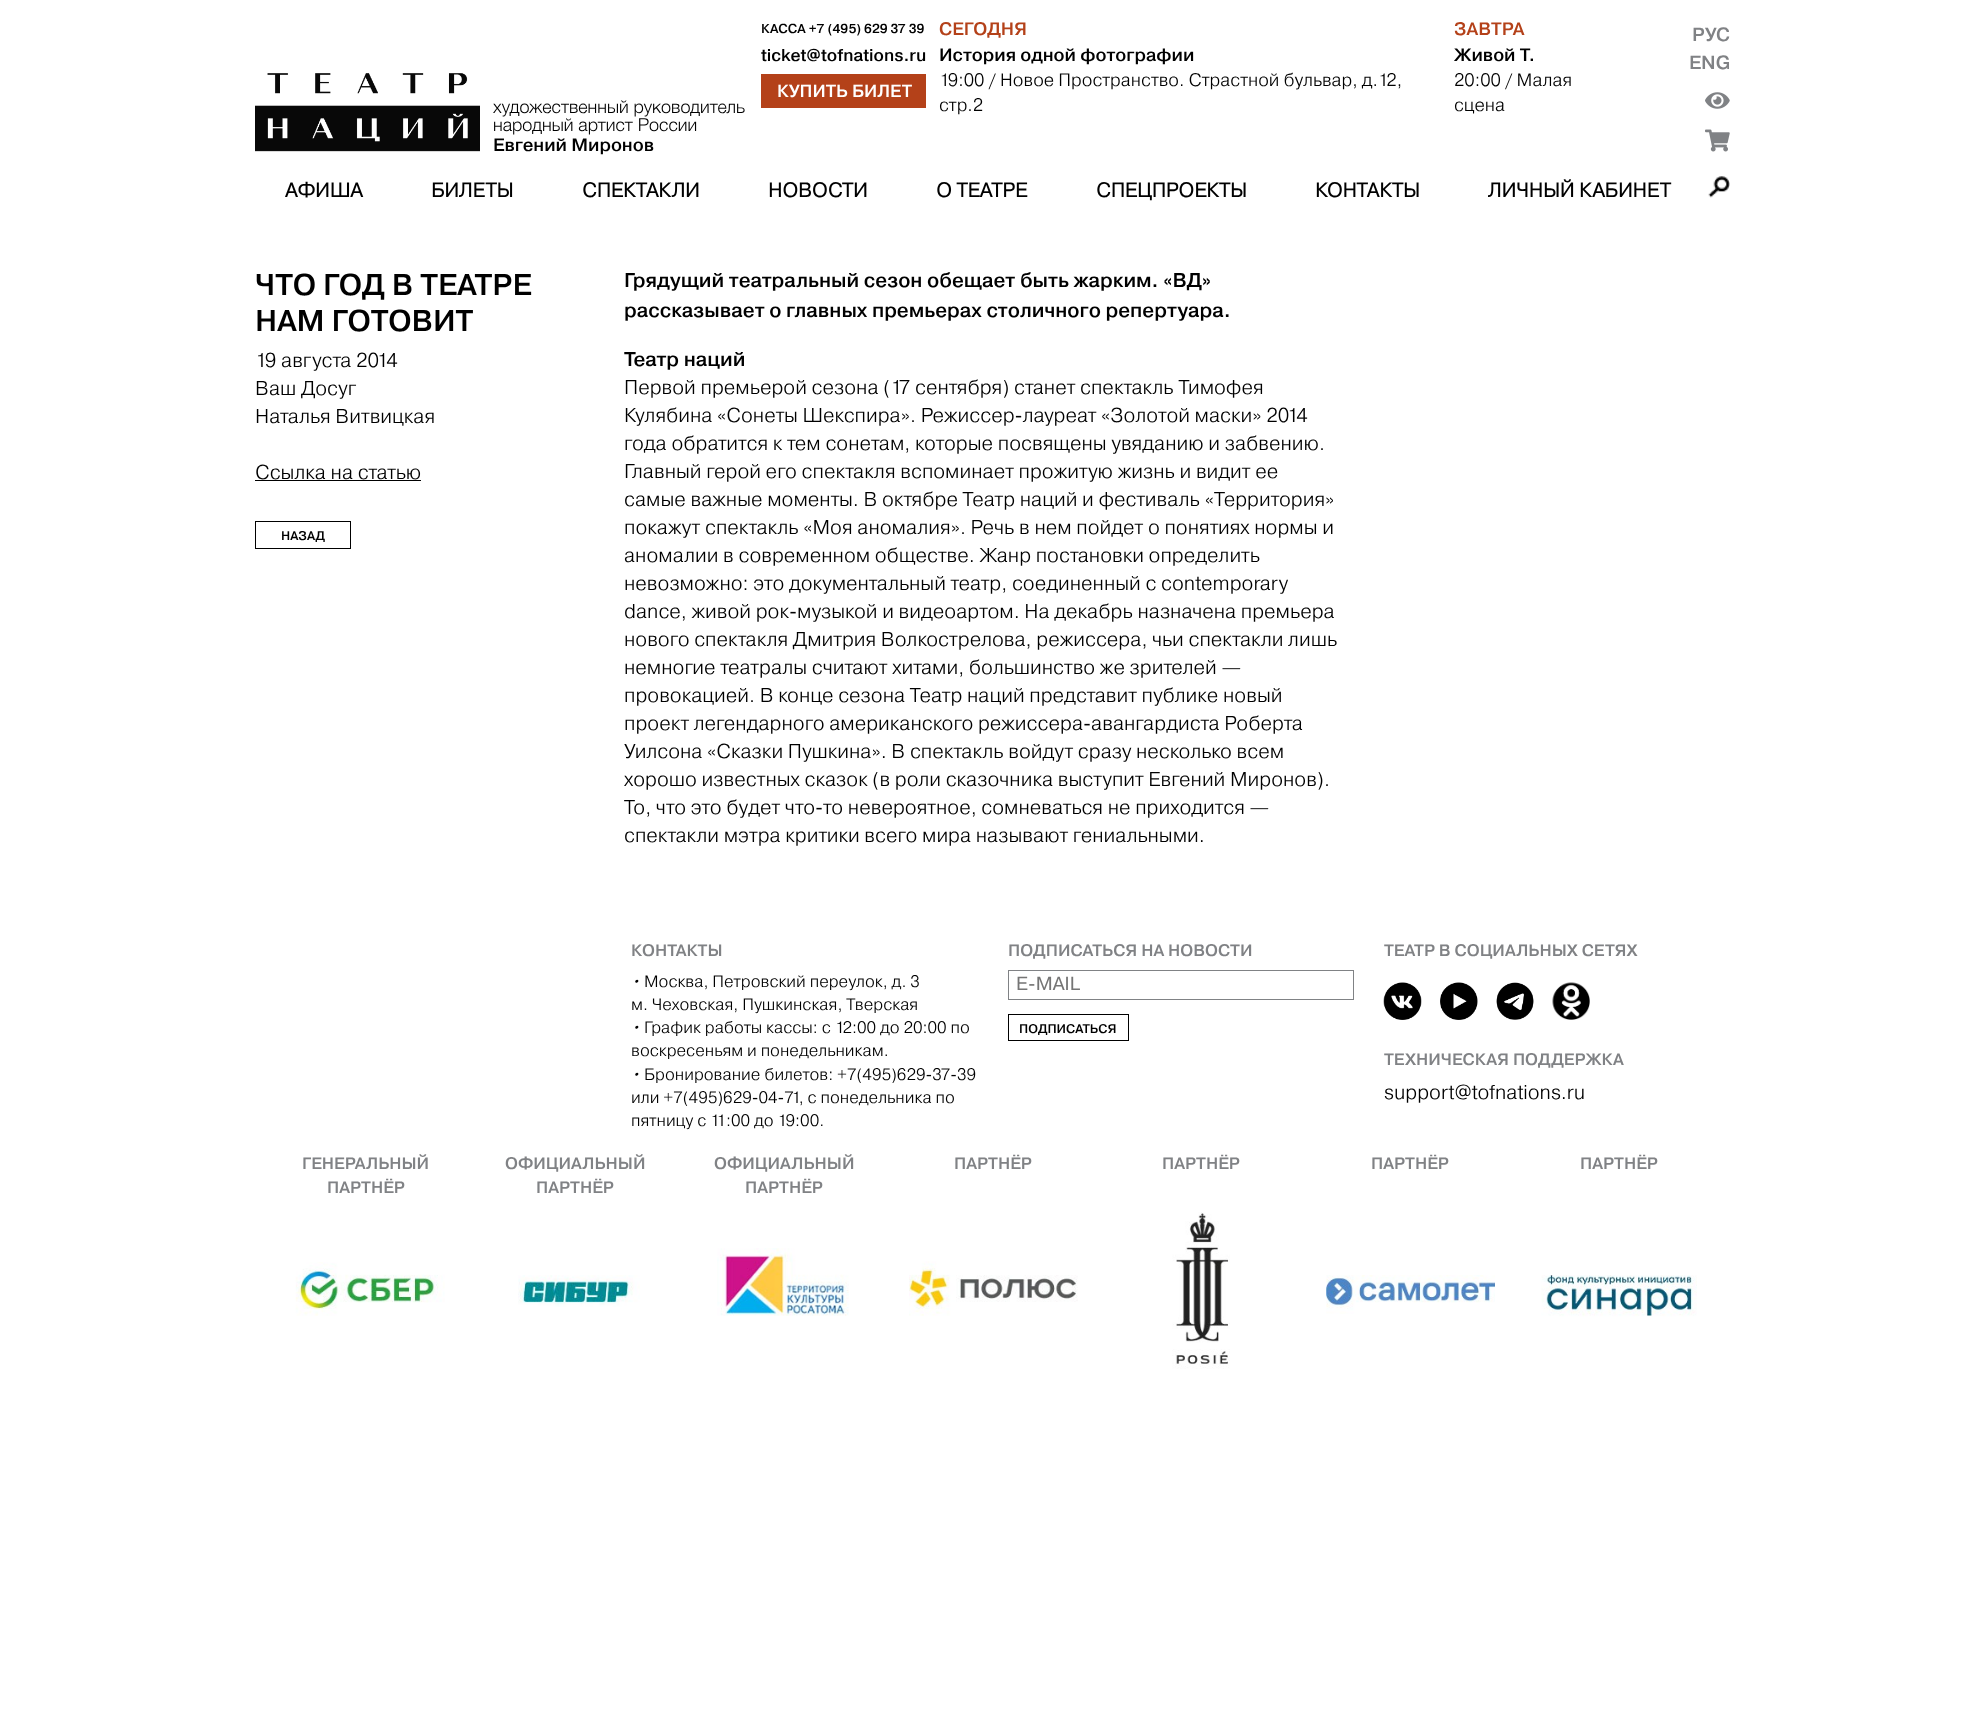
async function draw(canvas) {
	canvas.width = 1984;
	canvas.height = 1736;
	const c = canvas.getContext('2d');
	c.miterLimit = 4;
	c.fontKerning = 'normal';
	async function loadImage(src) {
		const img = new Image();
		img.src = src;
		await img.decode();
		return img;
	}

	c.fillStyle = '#fff';
	c.fillRect(0, 0, 1984, 1736);
	c.font = '500 13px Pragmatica';
	c.fillStyle = '#000';
	c.fillText('КАССА +7 (495) 629 37 39', 761, 33);
	c.font = '500 17px Pragmatica';
	c.fillText('ticket@tofnations.ru', 761, 61);
	c.fillStyle = '#b44119';
	c.fillRect(761, 74, 165, 34);
	c.font = '500 17.5px Pragmatica';
	c.fillStyle = '#fff';
	c.fillText('КУПИТЬ БИЛЕТ', 777, 97);
	c.font = '500 18px Pragmatica';
	c.fillStyle = '#b44119';
	c.fillText('СЕГОДНЯ', 939, 35);
	c.fillStyle = '#000';
	c.fillText('История одной фотографии', 939, 61);
	c.font = '300 18px Pragmatica';
	c.fillText('19:00 / Новое Пространство. Страстной бульвар, д.12,', 939, 86);
	c.fillText('стр.2', 939, 111);
	c.font = '500 18px Pragmatica';
	c.fillStyle = '#b44119';
	c.fillText('ЗАВТРА', 1454, 35);
	c.fillStyle = '#000';
	c.fillText('Живой Т.', 1454, 61);
	c.font = '300 18px Pragmatica';
	c.fillText('20:00 / Малая', 1454, 86);
	c.fillText('сцена', 1454, 111);
	c.font = '500 19px Pragmatica';
	c.fillStyle = '#808285';
	c.fillText('РУС', 1692, 41);
	c.fillText('ENG', 1689, 69);
	c.drawImage(await loadImage('img1.png'), 1705, 92, 25, 17);
	c.drawImage(await loadImage('img2.png'), 1705, 129, 25, 23);
	c.drawImage(await loadImage('img3.png'), 255, 73, 225, 79);
	c.font = '300 18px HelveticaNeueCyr';
	c.fillStyle = '#000';
	c.fillText('художественный руководитель', 493, 113);
	c.fillText('народный артист России', 493, 131);
	c.font = '500 18px Pragmatica';
	c.fillText('Евгений Миронов', 493, 151);
	c.font = 'bold 20px Pragmatica';
	for (const [text, x, y] of [
		['АФИША', 285, 197],
		['БИЛЕТЫ', 431, 197],
		['СПЕКТАКЛИ', 582, 197],
		['НОВОСТИ', 768, 197],
		['О ТЕАТРЕ', 936, 197],
		['СПЕЦПРОЕКТЫ', 1096, 197],
		['КОНТАКТЫ', 1315, 197],
		['ЛИЧНЫЙ КАБИНЕТ', 1488, 197],
	]) {
		c.fillText(text, x, y);
	}
	c.drawImage(await loadImage('img4.png'), 1708, 176, 22, 22);
	c.font = '500 30px Pragmatica';
	c.fillText('ЧТО ГОД В ТЕАТРЕ', 255, 295);
	c.fillText('НАМ ГОТОВИТ', 255, 331);
	c.font = '300 20px Pragmatica';
	for (const [text, x, y] of [
		['19 августа 2014', 255, 367],
		['Ваш Досуг', 255, 395],
		['Наталья Витвицкая', 255, 423],
		['Ссылка на статью', 255, 479],
	]) {
		c.fillText(text, x, y);
	}
	c.fillRect(255, 480, 166, 1);
	c.strokeStyle = '#000';
	c.strokeRect(255.5, 521.5, 95, 27);
	c.font = '500 12.5px Pragmatica';
	c.fillText('НАЗАД', 281, 540);
	c.font = '500 20px Pragmatica';
	for (const [text, x, y] of [
		['Грядущий театральный сезон обещает быть жарким. «ВД»', 624, 287],
		['рассказывает о главных премьерах столичного репертуара.', 624, 317],
		['Театр наций', 624, 366],
	]) {
		c.fillText(text, x, y);
	}
	c.font = '300 20px Pragmatica';
	for (const [text, x, y] of [
		['Первой премьерой сезона (17 сентября) станет спектакль Тимофея', 624, 394],
		['Кулябина «Сонеты Шекспира». Режиссер-лауреат «Золотой маски» 2014', 624, 422],
		['года обратится к тем сонетам, которые посвящены увяданию и забвению.', 624, 450],
		['Главный герой его спектакля вспоминает прожитую жизнь и видит ее', 624, 478],
		['самые важные моменты. В октябре Театр наций и фестиваль «Территория»', 624, 506],
		['покажут спектакль «Моя аномалия». Речь в нем пойдет о понятиях нормы и', 624, 534],
		['аномалии в современном обществе. Жанр постановки определить', 624, 562],
		['невозможно: это документальный театр, соединенный с contemporary', 624, 590],
		['dance, живой рок-музыкой и видеоартом. На декабрь назначена премьера', 624, 618],
		['нового спектакля Дмитрия Волкострелова, режиссера, чьи спектакли лишь', 624, 646],
		['немногие театралы считают хитами, большинство же зрителей —', 624, 674],
		['провокацией. В конце сезона Театр наций представит публике новый', 624, 702],
		['проект легендарного американского режиссера-авангардиста Роберта', 624, 730],
		['Уилсона «Сказки Пушкина». В спектакль войдут сразу несколько всем', 624, 758],
		['хорошо известных сказок (в роли сказочника выступит Евгений Миронов).', 624, 786],
		['То, что это будет что-то невероятное, сомневаться не приходится —', 624, 814],
		['спектакли мэтра критики всего мира называют гениальными.', 624, 842],
	]) {
		c.fillText(text, x, y);
	}
	c.font = '500 16.6px Pragmatica';
	c.fillStyle = '#808285';
	c.fillText('КОНТАКТЫ', 631, 956);
	c.font = 'italic 300 16.6px Pragmatica';
	c.fillStyle = '#000';
	c.fillText('•', 631, 987);
	c.font = '300 16.6px Pragmatica';
	c.fillText('Москва, Петровский переулок, д. 3', 644, 987);
	c.fillText('м. Чеховская, Пушкинская, Тверская', 631, 1010);
	c.font = 'italic 300 16.6px Pragmatica';
	c.fillText('•', 631, 1033);
	c.font = '300 16.6px Pragmatica';
	c.fillText('График работы кассы: с 12:00 до 20:00 по', 644, 1033);
	c.fillText('воскресеньям и понедельникам.', 631, 1056);
	c.font = 'italic 300 16.6px Pragmatica';
	c.fillText('•', 631, 1080);
	c.font = '300 16.6px Pragmatica';
	for (const [text, x, y] of [
		['Бронирование билетов: +7(495)629-37-39', 644, 1080],
		['или +7(495)629-04-71, с понедельника по', 631, 1103],
		['пятницу с 11:00 до 19:00.', 631, 1126],
	]) {
		c.fillText(text, x, y);
	}
	c.font = '500 16.6px Pragmatica';
	c.fillStyle = '#808285';
	c.fillText('ПОДПИСАТЬСЯ НА НОВОСТИ', 1008, 956);
	c.strokeStyle = '#808285';
	c.strokeRect(1008.5, 970.5, 345, 29);
	c.font = '18px Pragmatica';
	c.fillStyle = '#757575';
	c.fillText('E-MAIL', 1016, 990);
	c.strokeStyle = '#000';
	c.strokeRect(1008.5, 1014.5, 120, 26);
	c.font = '500 12.5px Pragmatica';
	c.fillStyle = '#000';
	c.fillText('ПОДПИСАТЬСЯ', 1019, 1033);
	c.font = '500 16.6px Pragmatica';
	c.fillStyle = '#808285';
	c.fillText('ТЕАТР В СОЦИАЛЬНЫХ СЕТЯХ', 1384, 956);
	c.drawImage(await loadImage('img5.png'), 1383, 982, 39, 38);
	c.drawImage(await loadImage('img6.png'), 1440, 982, 38, 38);
	c.drawImage(await loadImage('img7.png'), 1496, 982, 38, 38);
	c.drawImage(await loadImage('img8.png'), 1552, 982, 38, 38);
	c.fillText('ТЕХНИЧЕСКАЯ ПОДДЕРЖКА', 1384, 1065);
	c.font = '300 20px Pragmatica';
	c.fillStyle = '#000';
	c.fillText('support@tofnations.ru', 1384, 1099);
	c.font = '500 16.6px Pragmatica';
	c.fillStyle = '#808285';
	c.fillText('ГЕНЕРАЛЬНЫЙ', 302, 1169);
	c.fillText('ПАРТНЁР', 327, 1193);
	c.drawImage(await loadImage('img9.png'), 295, 1262, 150, 54);
	c.fillText('ОФИЦИАЛЬНЫЙ', 505, 1169);
	c.fillText('ПАРТНЁР', 536, 1193);
	c.drawImage(await loadImage('img10.png'), 518, 1275, 122, 32);
	c.fillText('ОФИЦИАЛЬНЫЙ', 714, 1169);
	c.fillText('ПАРТНЁР', 745, 1193);
	c.drawImage(await loadImage('img11.png'), 717, 1248, 132, 68);
	c.fillText('ПАРТНЁР', 954, 1169);
	c.drawImage(await loadImage('img12.png'), 909, 1261, 169, 55);
	c.fillText('ПАРТНЁР', 1162, 1169);
	c.drawImage(await loadImage('img13.png'), 1172, 1212, 58, 157);
	c.fillText('ПАРТНЁР', 1371, 1169);
	c.drawImage(await loadImage('img14.png'), 1326, 1275, 169, 39);
	c.fillText('ПАРТНЁР', 1580, 1169);
	c.drawImage(await loadImage('img15.png'), 1541, 1275, 156, 42);
}

draw(document.querySelector('canvas'));
